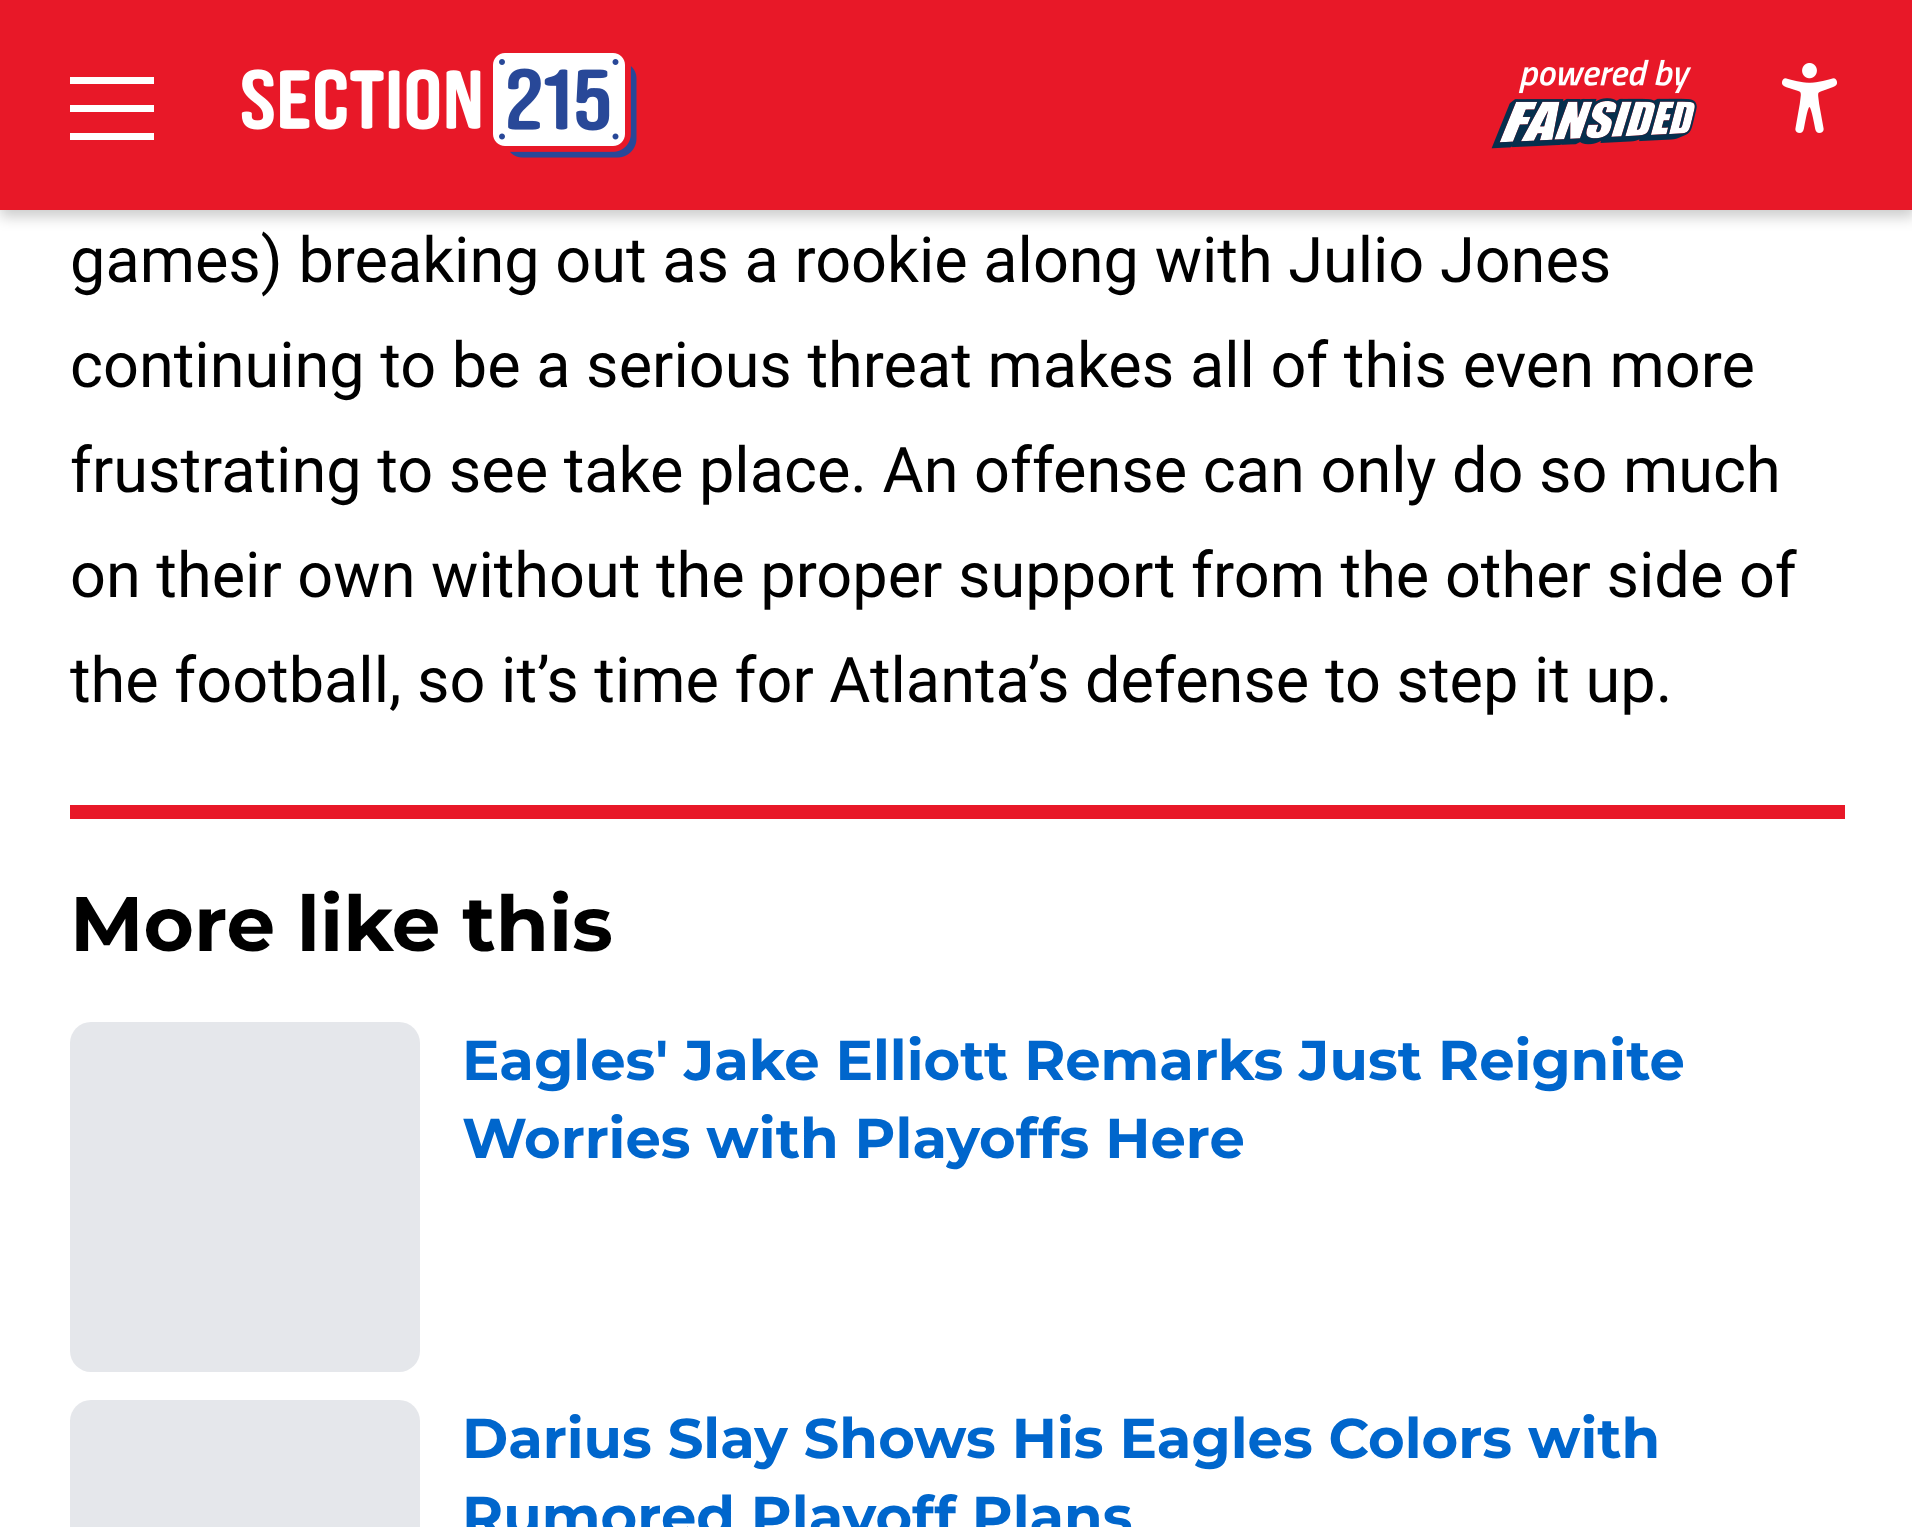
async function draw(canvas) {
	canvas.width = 1912;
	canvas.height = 1527;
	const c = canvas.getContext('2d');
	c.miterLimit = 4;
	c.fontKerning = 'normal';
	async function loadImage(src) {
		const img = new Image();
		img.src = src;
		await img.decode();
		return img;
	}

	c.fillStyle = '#fff';
	c.fillRect(0, 0, 1912, 1527);
	c.fillStyle = '#00000033';
	c.filter = 'blur(7px)';
	c.beginPath();
	c.rect(0, 7, 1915, 210);
	c.fill();
	c.filter = 'none';
	for (const [x, y, w, h, color] of [
		[0, 0, 1912, 210, '#e81828'],
		[70, 77, 84, 7, '#fff'],
		[70, 105, 84, 7, '#fff'],
		[70, 133, 84, 7, '#fff'],
	]) {
		c.fillStyle = color;
		c.fillRect(x, y, w, h);
	}
	c.drawImage(await loadImage('img1.png'), 241, 53, 396, 105);
	c.drawImage(await loadImage('img2.png'), 1491, 59, 206, 90);
	c.drawImage(await loadImage('img3.png'), 1782, 63, 55, 70);
	c.font = '63px Roboto';
	c.fillStyle = '#000';
	for (const [text, x, y] of [
		['games) breaking out as a rookie along with Julio Jones', 70, 282],
		['continuing to be a serious threat makes all of this even more', 70, 387],
		['frustrating to see take place. An offense can only do so much', 70, 492],
		['on their own without the proper support from the other side of', 70, 597],
		['the football, so it’s time for Atlanta’s defense to step it up.', 70, 702],
	]) {
		c.fillText(text, x, y);
	}
	c.fillStyle = '#e81828';
	c.fillRect(70, 805, 1775, 14);
	c.font = '100 77px Montserrat';
	c.fillStyle = '#000';
	c.fillText('More like this', 70, 951);
	c.fillStyle = '#e5e7eb';
	c.beginPath();
	c.roundRect(70, 1022, 350, 350, 21);
	c.fill();
	c.font = '100 56px Montserrat';
	c.fillStyle = '#06c';
	c.fillText('Eagles\' Jake Elliott Remarks Just Reignite', 462, 1080);
	c.fillText('Worries with Playoffs Here', 462, 1158);
	c.fillStyle = '#e5e7eb';
	c.beginPath();
	c.roundRect(70, 1400, 350, 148, 21);
	c.fill();
	c.fillStyle = '#06c';
	c.fillText('Darius Slay Shows His Eagles Colors with', 462, 1458);
	c.fillText('Rumored Playoff Plans', 462, 1536);
}

draw(document.querySelector('canvas'));
